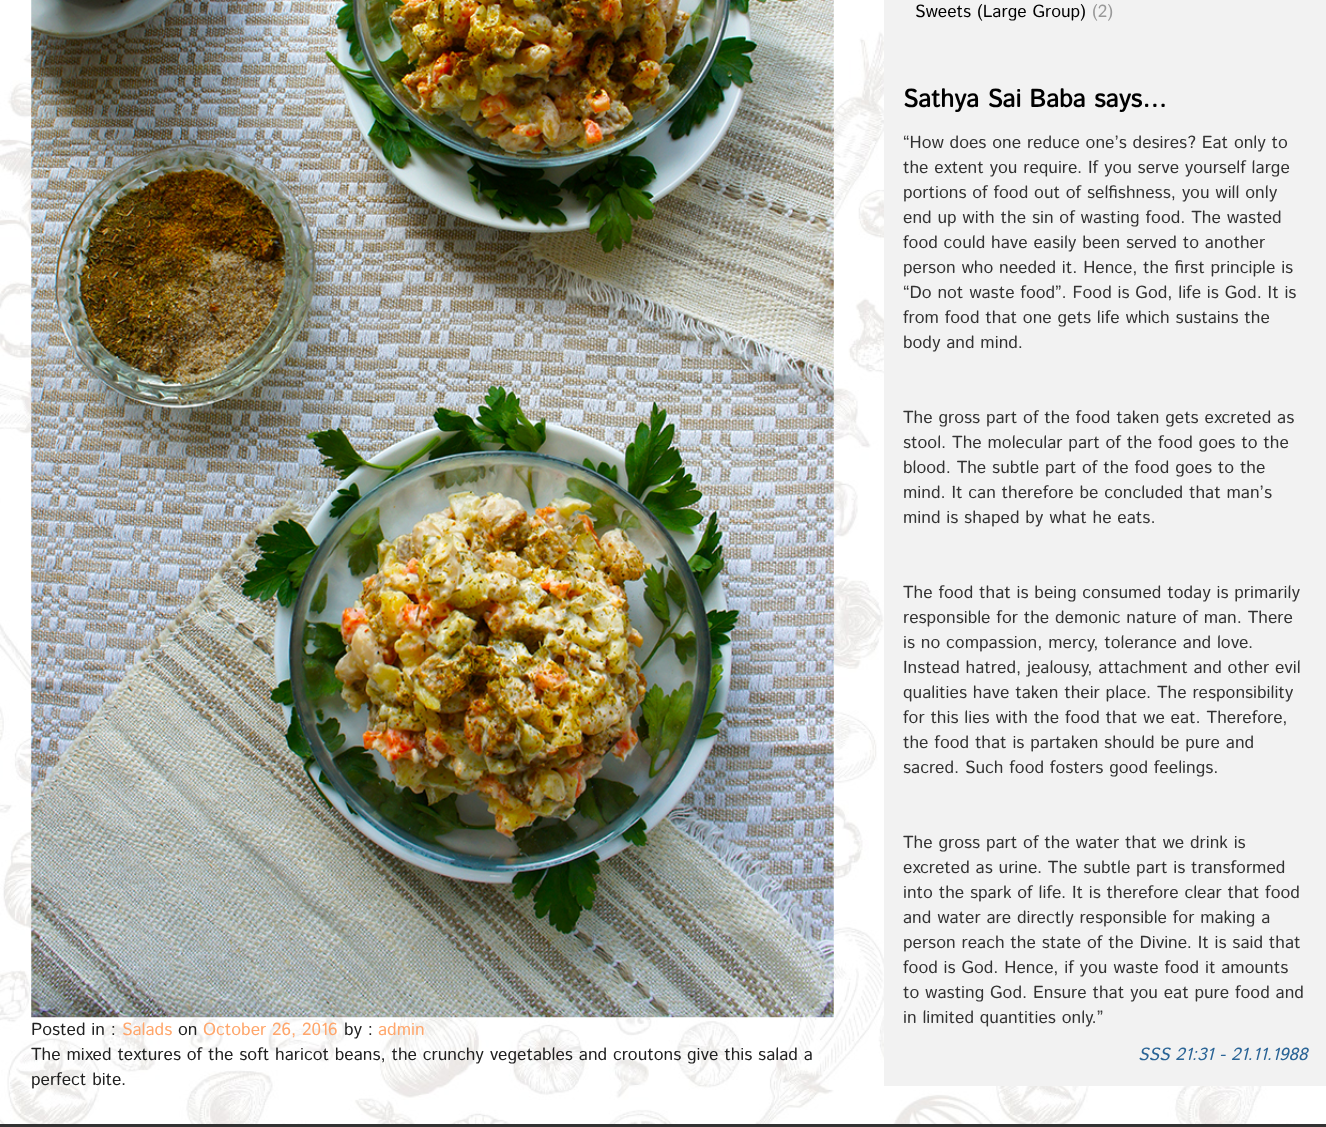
async function draw(canvas) {
	canvas.width = 1326;
	canvas.height = 1127;
	const c = canvas.getContext('2d');
	c.miterLimit = 4;
	c.fontKerning = 'normal';
	async function loadImage(src) {
		const img = new Image();
		img.src = src;
		await img.decode();
		return img;
	}

	c.fillStyle = '#fff';
	c.fillRect(0, 0, 1326, 1127);
	c.drawImage(await loadImage('img1.png'), 0, 15, 1326, 1109);
	c.drawImage(await loadImage('img2.png'), 31, 0, 803, 1018);
	c.font = '17.5px Istok Web';
	c.fillStyle = '#212121';
	c.fillText('Posted in :', 31, 1035);
	c.fillStyle = '#ffa66b';
	c.fillText('Salads', 122, 1035);
	c.fillStyle = '#212121';
	c.fillText('on', 178, 1035);
	c.fillStyle = '#ffa66b';
	c.fillText('October 26, 2016', 203, 1035);
	c.fillStyle = '#212121';
	c.fillText('by :', 344, 1035);
	c.fillStyle = '#ffa66b';
	c.fillText('admin', 378, 1035);
	c.fillStyle = '#212121';
	c.fillText('The mixed textures of the soft haricot beans, the crunchy vegetables and croutons give this salad a', 31, 1060);
	c.fillText('perfect bite.', 31, 1085);
	c.fillStyle = '#f2f2f2';
	c.fillRect(884, 0, 442, 1086);
	c.fillStyle = '#000';
	c.fillText('Sweets (Large Group)', 915, 17);
	c.fillStyle = '#999';
	c.fillText('(2)', 1092, 17);
	c.font = 'bold 25px Istok Web';
	c.fillStyle = '#000';
	c.fillText('Sathya Sai Baba says…', 903, 107);
	c.font = '17.5px Istok Web';
	c.fillStyle = '#333';
	for (const [text, x, y] of [
		['“How does one reduce one’s desires? Eat only to', 903, 148],
		['the extent you require. If you serve yourself large', 903, 173],
		['portions of food out of selfishness, you will only', 903, 198],
		['end up with the sin of wasting food. The wasted', 903, 223],
		['food could have easily been served to another', 903, 248],
		['person who needed it. Hence, the first principle is', 903, 273],
		['“Do not waste food”. Food is God, life is God. It is', 903, 298],
		['from food that one gets life which sustains the', 903, 323],
		['body and mind.', 903, 348],
		['The gross part of the food taken gets excreted as', 903, 423],
		['stool. The molecular part of the food goes to the', 903, 448],
		['blood. The subtle part of the food goes to the', 903, 473],
		['mind. It can therefore be concluded that man’s', 903, 498],
		['mind is shaped by what he eats.', 903, 523],
		['The food that is being consumed today is primarily', 903, 598],
		['responsible for the demonic nature of man. There', 903, 623],
		['is no compassion, mercy, tolerance and love.', 903, 648],
		['Instead hatred, jealousy, attachment and other evil', 903, 673],
		['qualities have taken their place. The responsibility', 903, 698],
		['for this lies with the food that we eat. Therefore,', 903, 723],
		['the food that is partaken should be pure and', 903, 748],
		['sacred. Such food fosters good feelings.', 903, 773],
		['The gross part of the water that we drink is', 903, 848],
		['excreted as urine. The subtle part is transformed', 903, 873],
		['into the spark of life. It is therefore clear that food', 903, 898],
		['and water are directly responsible for making a', 903, 923],
		['person reach the state of the Divine. It is said that', 903, 948],
		['food is God. Hence, if you waste food it amounts', 903, 973],
		['to wasting God. Ensure that you eat pure food and', 903, 998],
		['in limited quantities only.”', 903, 1023],
	]) {
		c.fillText(text, x, y);
	}
	c.font = 'italic 17.5px Istok Web';
	c.fillStyle = '#2a6496';
	c.fillText('SSS 21:31 - 21.11.1988', 1138, 1060);
	c.fillStyle = '#333';
	c.fillRect(0, 1124, 1326, 3);
}

draw(document.querySelector('canvas'));
